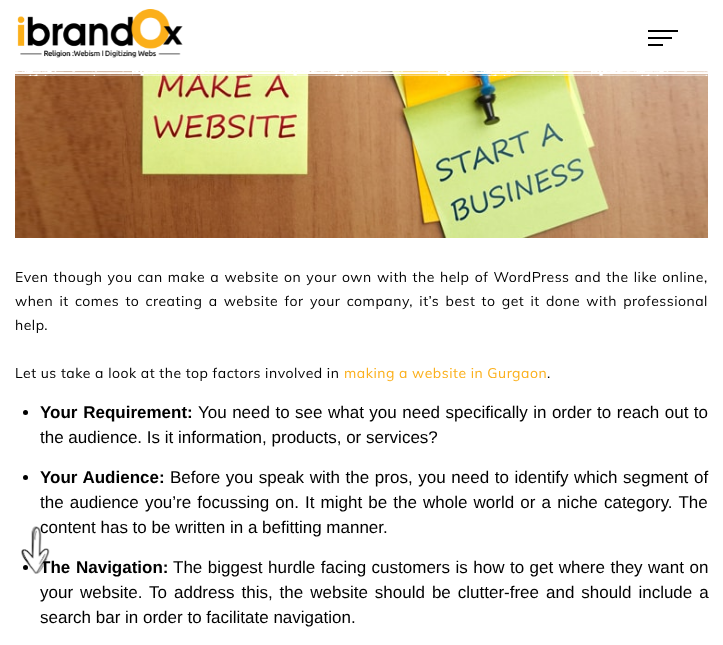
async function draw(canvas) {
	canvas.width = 723;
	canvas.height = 645;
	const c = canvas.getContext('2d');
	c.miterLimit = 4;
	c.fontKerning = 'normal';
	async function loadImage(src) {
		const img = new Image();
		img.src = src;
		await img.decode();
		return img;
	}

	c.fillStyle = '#fff';
	c.fillRect(0, 0, 723, 645);
	c.drawImage(await loadImage('img1.png'), 17, 9, 166, 49);
	for (const [x, y, w, h, color] of [
		[648, 30, 30, 2, '#000'],
		[648, 37, 24, 2, '#000'],
		[648, 44, 15, 2, '#000'],
	]) {
		c.fillStyle = color;
		c.fillRect(x, y, w, h);
	}
	c.drawImage(await loadImage('img3.png'), 15, 71, 693, 167);
	c.drawImage(await loadImage('img2.png'), 15, 71, 693, 5);
	c.letterSpacing = '0.5px';
	c.wordSpacing = '1px';
	c.font = '14px Muli';
	c.fillText('Even though you can make a website on your own with the help of WordPress and the like online,', 15, 282);
	c.wordSpacing = '2.1px';
	c.fillText('when it comes to creating a website for your company, it’s best to get it done with professional', 15, 306);
	c.wordSpacing = '0px';
	c.fillText('help.', 15, 330);
	c.fillText('Let us take a look at the top factors involved in', 15, 378);
	c.fillStyle = '#fbaf1a';
	c.fillText('making a website in Gurgaon', 344, 378);
	c.fillStyle = '#000';
	c.fillText('.', 547, 378);
	c.beginPath();
	c.arc(25.5, 412.5, 2.5, 0, 2 * Math.PI);
	c.fill();
	c.letterSpacing = '0px';
	c.wordSpacing = '1px';
	c.font = 'bold 17px Liberation Sans';
	c.fillText('Your Requirement:', 40, 418);
	c.wordSpacing = '0.75px';
	c.font = '17px Liberation Sans';
	c.fillText('You need to see what you need specifically in order to reach out to', 198, 418);
	c.wordSpacing = '0px';
	c.fillText('the audience. Is it information, products, or services?', 40, 443);
	c.beginPath();
	c.arc(25.5, 477.5, 2.5, 0, 2 * Math.PI);
	c.fill();
	c.wordSpacing = '0.9px';
	c.font = 'bold 17px Liberation Sans';
	c.fillText('Your Audience:', 40, 483);
	c.font = '17px Liberation Sans';
	c.fillText('Before you speak with the pros, you need to identify which segment of', 170, 483);
	c.wordSpacing = '1.4px';
	c.fillText('the audience you’re focussing on. It might be the whole world or a niche category. The', 40, 508);
	c.wordSpacing = '0px';
	c.fillText('content has to be written in a befitting manner.', 40, 533);
	c.beginPath();
	c.arc(25.5, 567.5, 2.5, 0, 2 * Math.PI);
	c.fill();
	c.wordSpacing = '1px';
	c.font = 'bold 17px Liberation Sans';
	c.fillText('The Navigation:', 40, 573);
	c.wordSpacing = '0.75px';
	c.font = '17px Liberation Sans';
	c.fillText('The biggest hurdle facing customers is how to get where they want on', 173, 573);
	c.wordSpacing = '2.25px';
	c.fillText('your website. To address this, the website should be clutter-free and should include a', 40, 598);
	c.wordSpacing = '0px';
	c.fillText('search bar in order to facilitate navigation.', 40, 623);
	c.drawImage(await loadImage('img4.png'), 21, 526, 29, 48);
}

draw(document.querySelector('canvas'));
